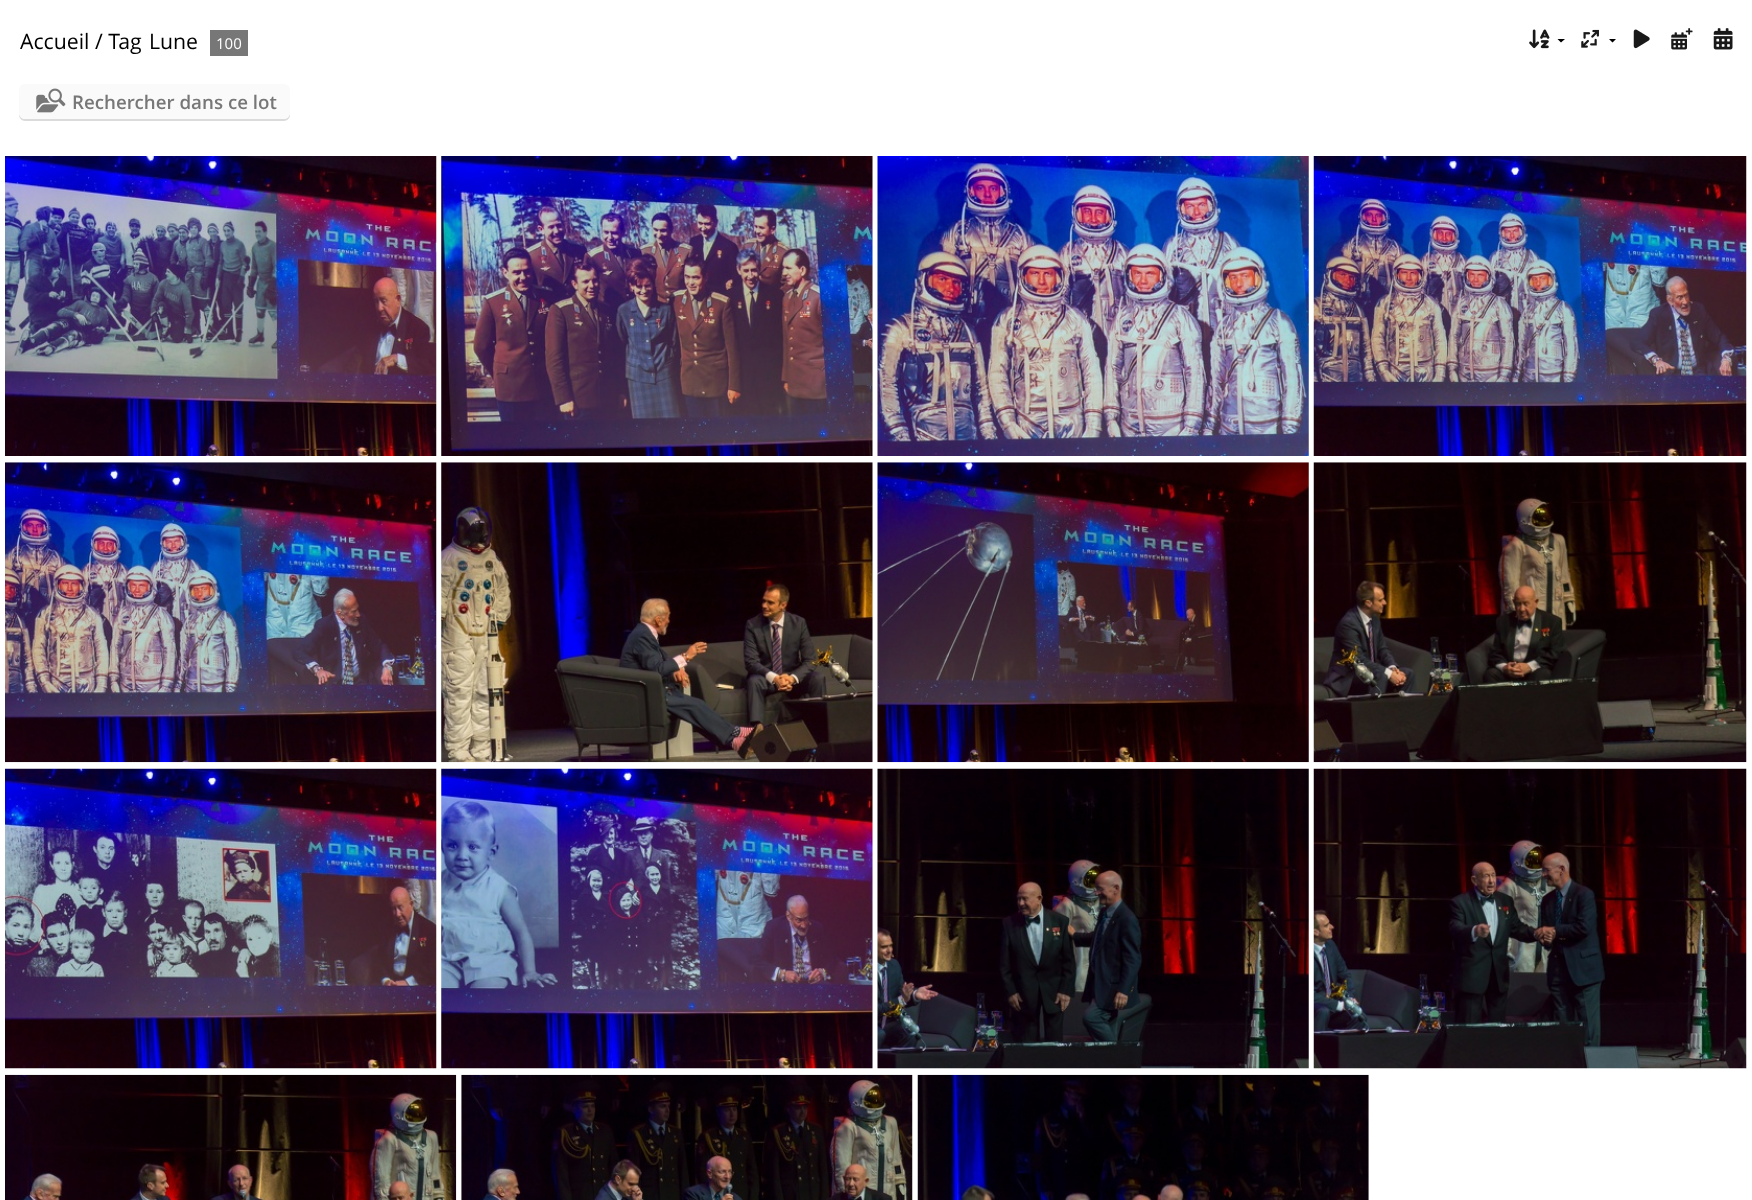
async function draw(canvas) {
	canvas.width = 1752;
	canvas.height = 1200;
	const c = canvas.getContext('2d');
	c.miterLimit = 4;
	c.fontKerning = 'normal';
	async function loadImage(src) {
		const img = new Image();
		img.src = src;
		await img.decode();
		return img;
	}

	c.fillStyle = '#fff';
	c.fillRect(0, 0, 1752, 1200);
	c.font = '21.25px Open Sans';
	c.fillStyle = '#000';
	c.fillText('Accueil / Tag', 20, 49);
	c.fillText('Lune', 149, 49);
	c.fillStyle = '#777';
	c.fillRect(210, 30, 38, 26);
	c.font = '15px Open Sans';
	c.fillStyle = '#fff';
	c.fillText('100', 216, 49);
	c.drawImage(await loadImage('img1.png'), 1529, 29, 21, 20);
	c.fillStyle = '#000';
	c.beginPath();
	c.moveTo(1557.5, 39);
	c.lineTo(1565, 39);
	c.lineTo(1561, 42.5);
	c.closePath();
	c.moveTo(1609, 39);
	c.lineTo(1616, 39);
	c.lineTo(1612.5, 42.5);
	c.closePath();
	c.fill();
	c.drawImage(await loadImage('img2.png'), 1671, 28, 22, 22);
	c.drawImage(await loadImage('img3.png'), 1713, 28, 20, 22);
	c.drawImage(await loadImage('img4.png'), 1581, 29, 18, 19);
	c.drawImage(await loadImage('img5.png'), 1633, 29, 17, 20);
	c.fillStyle = '#dbdbdb';
	c.beginPath();
	c.moveTo(19, 114);
	c.lineTo(19, 115);
	c.bezierCurveTo(19, 118, 22, 121, 25, 121);
	c.lineTo(284, 121);
	c.bezierCurveTo(287, 121, 290, 118, 290, 115);
	c.lineTo(290, 112);
	c.bezierCurveTo(290, 116, 287, 119, 284, 119);
	c.lineTo(25, 119);
	c.bezierCurveTo(22, 119, 20, 117, 19, 114);
	c.closePath();
	c.fill();
	c.fillStyle = '#fafafa';
	c.beginPath();
	c.roundRect(19, 84, 271, 35, 6);
	c.fill();
	c.drawImage(await loadImage('img6.png'), 36, 88, 30, 25);
	c.font = '600 18.75px Open Sans';
	c.fillStyle = '#777';
	c.fillText('Rechercher dans ce lot', 72, 109);
	c.drawImage(await loadImage('img7.png'), 5, 156, 432, 300);
	c.drawImage(await loadImage('img8.png'), 441, 156, 432, 300);
	c.drawImage(await loadImage('img9.png'), 877, 156, 432, 300);
	c.drawImage(await loadImage('img10.png'), 1313, 156, 434, 300);
	c.drawImage(await loadImage('img11.png'), 5, 462, 432, 301);
	c.drawImage(await loadImage('img12.png'), 441, 462, 432, 301);
	c.drawImage(await loadImage('img13.png'), 877, 462, 432, 301);
	c.drawImage(await loadImage('img14.png'), 1313, 462, 434, 301);
	c.drawImage(await loadImage('img15.png'), 5, 768, 432, 301);
	c.drawImage(await loadImage('img16.png'), 441, 768, 432, 301);
	c.drawImage(await loadImage('img17.png'), 877, 768, 432, 301);
	c.drawImage(await loadImage('img18.png'), 1313, 768, 434, 301);
	c.drawImage(await loadImage('img19.png'), 5, 1074, 452, 126);
	c.drawImage(await loadImage('img20.png'), 461, 1074, 452, 126);
	c.drawImage(await loadImage('img21.png'), 917, 1074, 452, 126);
}

draw(document.querySelector('canvas'));
